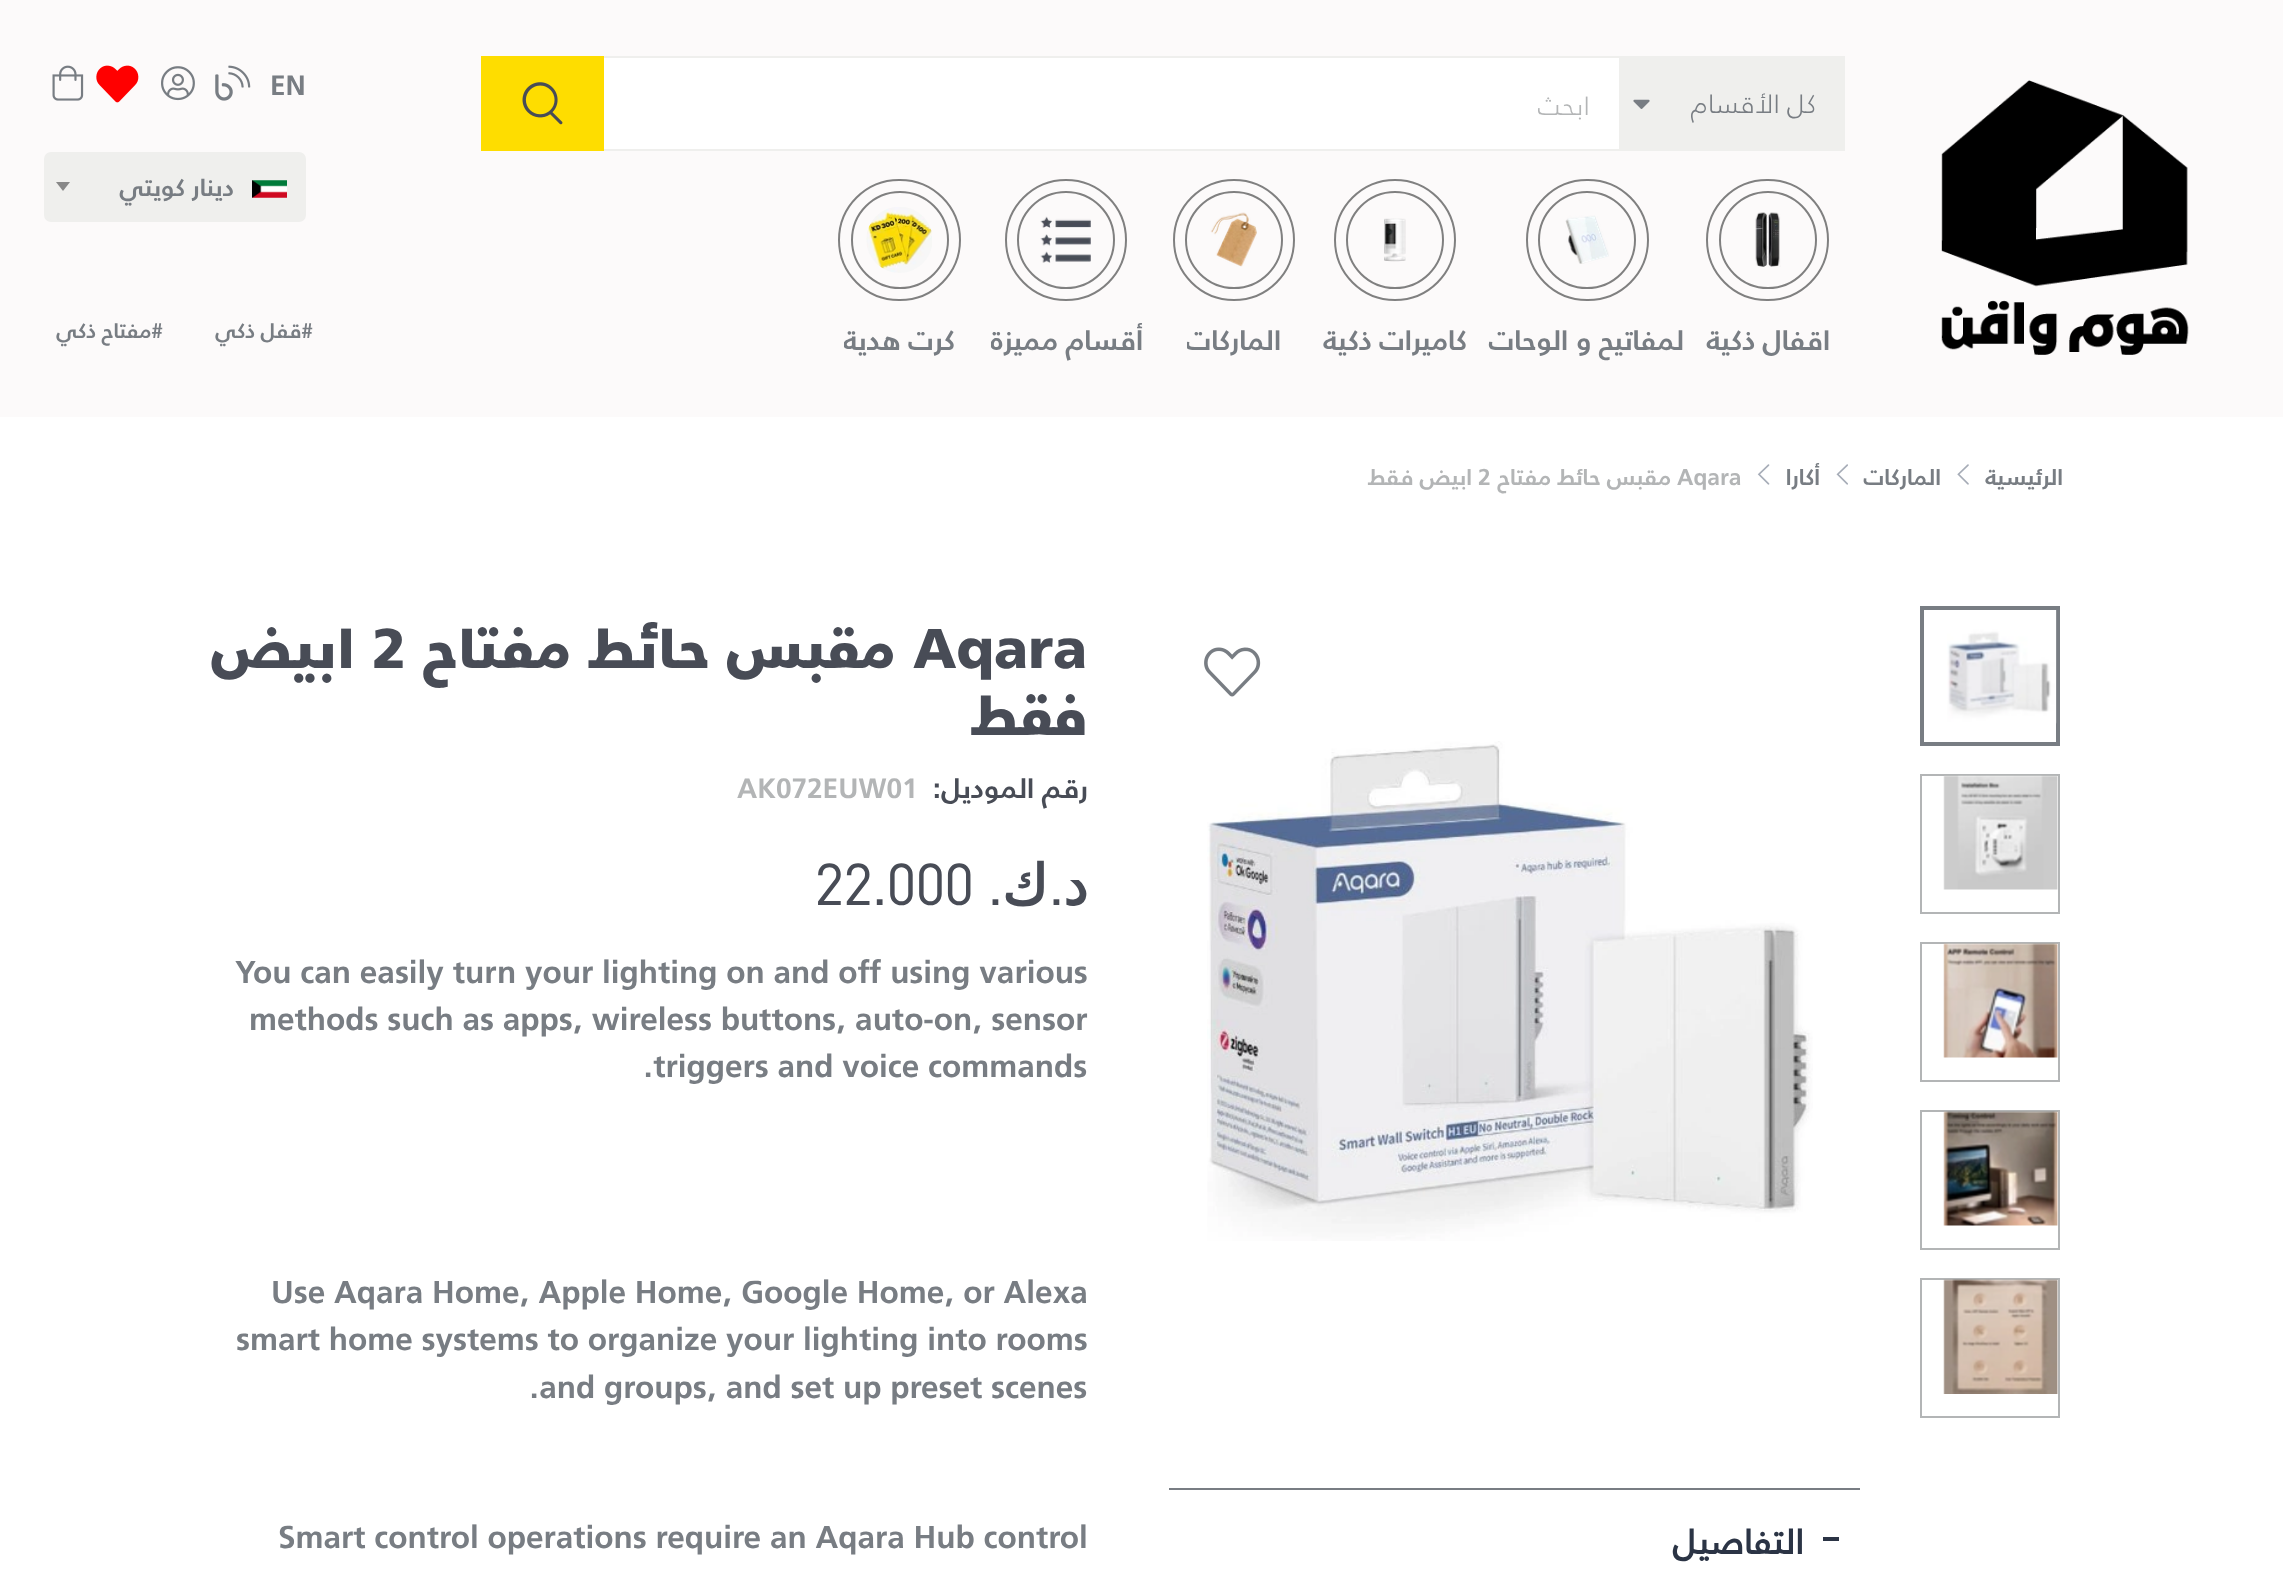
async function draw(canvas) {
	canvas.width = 2283;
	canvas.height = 1577;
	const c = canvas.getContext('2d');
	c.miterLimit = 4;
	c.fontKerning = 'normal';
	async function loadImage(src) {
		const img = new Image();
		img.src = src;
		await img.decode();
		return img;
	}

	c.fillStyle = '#fff';
	c.fillRect(0, 0, 2283, 1577);
	c.fillStyle = '#fcfafa';
	c.fillRect(0, 0, 2283, 417);
	c.drawImage(await loadImage('img1.png'), 52, 65, 32, 36);
	c.drawImage(await loadImage('img2.png'), 96, 65, 43, 38);
	c.drawImage(await loadImage('img3.png'), 161, 66, 34, 35);
	c.drawImage(await loadImage('img4.png'), 215, 65, 36, 36);
	c.font = 'bold 28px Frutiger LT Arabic';
	c.fillStyle = '#787d83';
	c.fillText('EN', 270, 95);
	c.fillStyle = '#efefed';
	c.beginPath();
	c.roundRect(45, 153, 260, 68, 6);
	c.fill();
	c.strokeStyle = '#efefed';
	c.lineWidth = 2;
	c.stroke();
	c.fillStyle = '#888';
	c.beginPath();
	c.moveTo(56, 182);
	c.lineTo(70, 182);
	c.lineTo(63, 191);
	c.closePath();
	c.fill();
	c.direction = 'rtl';
	c.font = 'bold 24.5px Frutiger LT Arabic';
	c.fillStyle = '#787d83';
	c.fillText('دينار كويتي', 234, 196);
	c.drawImage(await loadImage('img5.png'), 252, 180, 35, 18);
	c.font = 'bold 21px Frutiger LT Arabic';
	c.fillText('#مفتاح ذكي', 163, 338);
	c.fillText('#قفل ذكي', 313, 338);
	for (const [x, y, w, h, color] of [
		[602, 56, 1017, 2, '#efefed'],
		[602, 149, 1017, 2, '#efefed'],
		[481, 56, 123, 95, '#fedd00'],
	]) {
		c.fillStyle = color;
		c.fillRect(x, y, w, h);
	}
	c.drawImage(await loadImage('img6.png'), 522, 82, 41, 43);
	c.fillStyle = '#fff';
	c.fillRect(604, 58, 1015, 91);
	c.font = '300 26.25px Frutiger LT Arabic';
	c.fillStyle = '#b3b5b6';
	c.fillText('ابحث', 1590, 115);
	c.fillStyle = '#efefed';
	c.fillRect(1619, 56, 226, 95);
	c.drawImage(await loadImage('img7.png'), 1633, 99, 17, 10);
	c.fillStyle = '#787d83';
	c.fillText('كل الأقسام', 1816, 113);
	c.beginPath();
	c.roundRect(839, 180, 121, 120, 60);
	c.strokeStyle = '#808080';
	c.stroke();
	c.beginPath();
	c.arc(900, 240, 48, 0, 2 * Math.PI);
	c.stroke();
	c.drawImage(await loadImage('img8.png'), 866, 207, 66, 66);
	c.save();
	c.beginPath();
	c.rect(844, 319, 112, 42);
	c.clip();
	c.font = 'bold 28px Frutiger LT Arabic';
	c.fillText('كرت هدية', 955, 350);
	c.restore();
	c.beginPath();
	c.arc(1066, 240, 60, 0, 2 * Math.PI);
	c.stroke();
	c.beginPath();
	c.arc(1066, 240, 48, 0, 2 * Math.PI);
	c.stroke();
	c.drawImage(await loadImage('img9.png'), 1040, 216, 51, 47);
	c.save();
	c.beginPath();
	c.rect(991, 319, 152, 42);
	c.clip();
	c.font = 'bold 28px Frutiger LT Arabic';
	c.fillText('أقسام مميزة', 1143, 350);
	c.restore();
	c.beginPath();
	c.arc(1234, 240, 60, 0, 2 * Math.PI);
	c.stroke();
	c.beginPath();
	c.arc(1234, 240, 48, 0, 2 * Math.PI);
	c.stroke();
	c.drawImage(await loadImage('img10.png'), 1210, 212, 47, 55);
	c.save();
	c.beginPath();
	c.rect(1187, 319, 94, 42);
	c.clip();
	c.font = 'bold 28px Frutiger LT Arabic';
	c.fillText('الماركات', 1281, 350);
	c.restore();
	c.beginPath();
	c.arc(1395, 240, 60, 0, 2 * Math.PI);
	c.stroke();
	c.beginPath();
	c.arc(1395, 240, 48, 0, 2 * Math.PI);
	c.stroke();
	c.drawImage(await loadImage('img11.png'), 1384, 218, 22, 44);
	c.font = 'bold 28px Frutiger LT Arabic';
	c.fillText('كاميرات ذكية', 1467, 350);
	c.beginPath();
	c.roundRect(1527, 180, 121, 120, 60);
	c.stroke();
	c.beginPath();
	c.arc(1587, 240, 48, 0, 2 * Math.PI);
	c.stroke();
	c.drawImage(await loadImage('img12.png'), 1565, 215, 44, 49);
	c.fillText('لمفاتيح و الوحات', 1684, 350);
	c.beginPath();
	c.roundRect(1707, 180, 121, 120, 60);
	c.stroke();
	c.beginPath();
	c.arc(1768, 240, 48, 0, 2 * Math.PI);
	c.stroke();
	c.drawImage(await loadImage('img13.png'), 1755, 212, 26, 55);
	c.fillText('اقفال ذكية', 1830, 350);
	c.drawImage(await loadImage('img14.png'), 1941, 80, 248, 275);
	c.font = 'bold 22.75px Frutiger LT Arabic';
	c.fillStyle = '#b3b5b6';
	c.fillText('ابيض فقط', 1472, 485);
	c.direction = 'ltr';
	c.fillText('2', 1478, 485);
	c.direction = 'rtl';
	c.fillText('مقبس حائط مفتاح', 1671, 485);
	c.direction = 'ltr';
	c.fillText('Aqara', 1677, 485);
	c.drawImage(await loadImage('img15.png'), 1757, 464, 13, 21);
	c.direction = 'rtl';
	c.fillStyle = '#787d83';
	c.fillText('أكارا', 1820, 485);
	c.drawImage(await loadImage('img16.png'), 1836, 464, 12, 21);
	c.fillText('الماركات', 1941, 485);
	c.drawImage(await loadImage('img17.png'), 1957, 464, 12, 21);
	c.fillText('الرئيسية', 2063, 485);
	c.font = '900 56px Frutiger LT Arabic';
	c.fillStyle = '#484c56';
	c.fillText('ابيض', 355, 668);
	c.direction = 'ltr';
	c.fillText('2', 372, 668);
	c.direction = 'rtl';
	c.fillText('مقبس حائط مفتاح', 896, 668);
	c.direction = 'ltr';
	c.fillText('Aqara', 913, 668);
	c.direction = 'rtl';
	c.fillText('فقط', 1088, 735);
	c.direction = 'ltr';
	c.font = 'bold 28px Frutiger LT Arabic';
	c.fillStyle = '#b3b5b6';
	c.fillText('AK072EUW01', 737, 798);
	c.direction = 'rtl';
	c.fillStyle = '#484c56';
	c.fillText('رقم الموديل:', 1088, 798);
	c.direction = 'ltr';
	c.font = 'bold 56px DIN';
	c.fillText('22.000', 814, 905);
	c.direction = 'rtl';
	c.fillText('.', 1002, 905);
	c.font = 'bold 56px DejaVu Sans';
	c.fillText('ك', 1048, 905);
	c.font = 'bold 56px DIN';
	c.fillText('.', 1063, 905);
	c.font = 'bold 56px DejaVu Sans';
	c.fillText('د', 1088, 905);
	c.direction = 'ltr';
	c.font = 'bold 31.5px Frutiger LT Arabic';
	c.fillStyle = '#787d83';
	for (const [text, x, y] of [
		['You can easily turn your lighting on and off using various', 235, 983],
		['methods such as apps, wireless buttons, auto-on, sensor', 249, 1030],
		['.triggers and voice commands', 643, 1077],
		['Use Aqara Home, Apple Home, Google Home, or Alexa', 271, 1303],
		['smart home systems to organize your lighting into rooms', 236, 1350],
		['.and groups, and set up preset scenes', 529, 1398],
		['Smart control operations require an Aqara Hub control', 278, 1548],
	]) {
		c.fillText(text, x, y);
	}
	c.drawImage(await loadImage('img18.png'), 1204, 647, 57, 50);
	c.drawImage(await loadImage('img19.png'), 1207, 741, 606, 500);
	c.strokeStyle = '#787d83';
	c.lineWidth = 4;
	c.strokeRect(1922, 608, 136, 136);
	c.drawImage(await loadImage('img20.png'), 1947, 610, 110, 114);
	c.strokeStyle = '#b3b5b6';
	c.lineWidth = 2;
	c.strokeRect(1921, 775, 138, 138);
	c.drawImage(await loadImage('img21.png'), 1943, 775, 115, 115);
	c.strokeRect(1921, 943, 138, 138);
	c.drawImage(await loadImage('img22.png'), 1943, 943, 115, 115);
	c.strokeRect(1921, 1111, 138, 138);
	c.drawImage(await loadImage('img23.png'), 1943, 1111, 115, 115);
	c.strokeRect(1921, 1279, 138, 138);
	c.drawImage(await loadImage('img24.png'), 1943, 1279, 115, 115);
	c.fillRect(1169, 1488, 691, 2);
	c.direction = 'rtl';
	c.font = 'bold 35px "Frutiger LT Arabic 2"';
	c.fillStyle = '#2b3445';
	c.fillText('التفاصيل', 1804, 1554);
	c.fillRect(1823, 1537, 16, 4);
}

draw(document.querySelector('canvas'));
